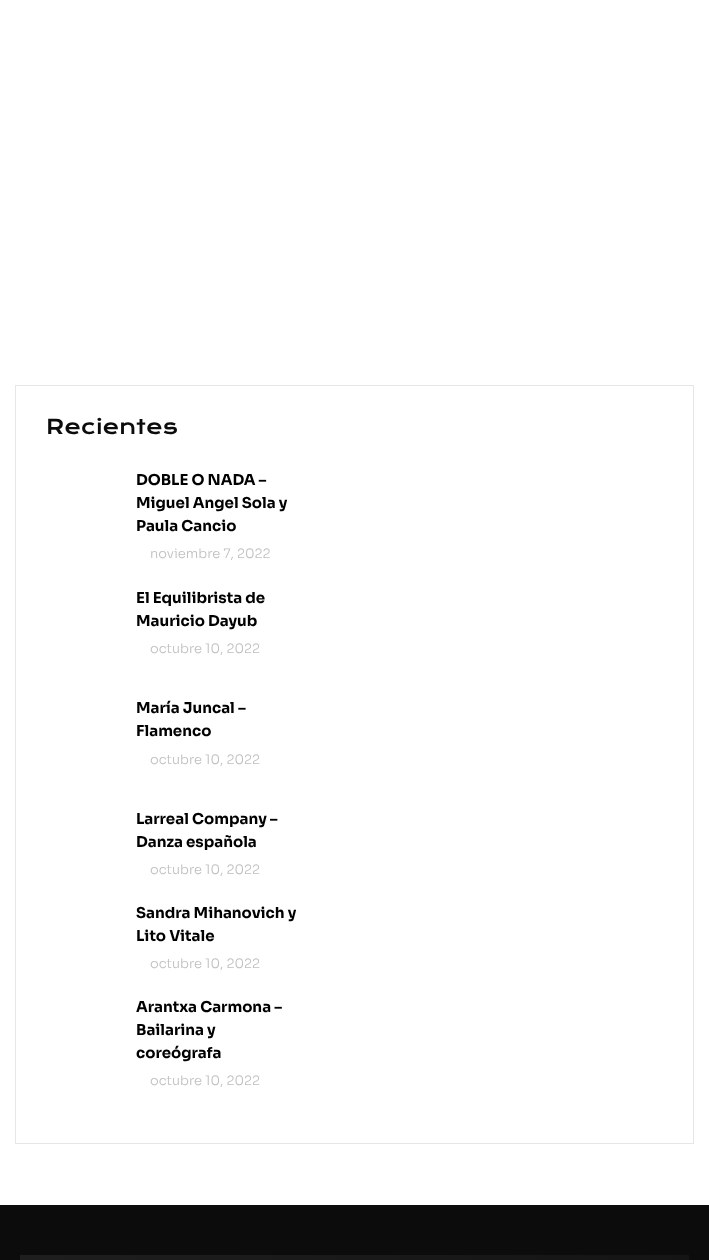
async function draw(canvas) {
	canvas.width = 709;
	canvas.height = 1260;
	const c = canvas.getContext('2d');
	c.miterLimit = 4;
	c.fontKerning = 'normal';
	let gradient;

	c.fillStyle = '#fff';
	c.fillRect(0, 0, 709, 1260);
	c.strokeStyle = '#e6e6e6';
	c.strokeRect(15.5, 385.5, 678, 758);
	c.font = '20px Krona One';
	c.fillStyle = '#0c0c0c';
	c.fillText('Recientes', 46, 434);
	c.font = 'bold 15px Sora';
	c.fillStyle = '#000';
	for (const [text, x, y] of [
		['DOBLE O NADA –', 136, 485],
		['Miguel Angel Sola y', 136, 508],
		['Paula Cancio', 136, 531],
	]) {
		c.fillText(text, x, y);
	}
	c.font = '300 13px Sora';
	c.fillStyle = '#bfbfbf';
	c.fillText('noviembre 7, 2022', 150, 558);
	c.font = 'bold 15px Sora';
	c.fillStyle = '#000';
	c.fillText('El Equilibrista de', 136, 603);
	c.fillText('Mauricio Dayub', 136, 626);
	c.font = '300 13px Sora';
	c.fillStyle = '#bfbfbf';
	c.fillText('octubre 10, 2022', 150, 653);
	c.font = 'bold 15px Sora';
	c.fillStyle = '#000';
	c.fillText('María Juncal –', 136, 713);
	c.fillText('Flamenco', 136, 736);
	c.font = '300 13px Sora';
	c.fillStyle = '#bfbfbf';
	c.fillText('octubre 10, 2022', 150, 764);
	c.font = 'bold 15px Sora';
	c.fillStyle = '#000';
	c.fillText('Larreal Company –', 136, 824);
	c.fillText('Danza española', 136, 847);
	c.font = '300 13px Sora';
	c.fillStyle = '#bfbfbf';
	c.fillText('octubre 10, 2022', 150, 874);
	c.font = 'bold 15px Sora';
	c.fillStyle = '#000';
	c.fillText('Sandra Mihanovich y', 136, 918);
	c.fillText('Lito Vitale', 136, 941);
	c.font = '300 13px Sora';
	c.fillStyle = '#bfbfbf';
	c.fillText('octubre 10, 2022', 150, 968);
	c.font = 'bold 15px Sora';
	c.fillStyle = '#000';
	for (const [text, x, y] of [
		['Arantxa Carmona –', 136, 1012],
		['Bailarina y', 136, 1035],
		['coreógrafa', 136, 1058],
	]) {
		c.fillText(text, x, y);
	}
	c.font = '300 13px Sora';
	c.fillStyle = '#bfbfbf';
	c.fillText('octubre 10, 2022', 150, 1085);
	c.fillStyle = '#0c0c0c';
	c.fillRect(0, 1205, 709, 55);
	gradient = c.createRadialGradient(20, 2086.52, 0, 20, 2086.52, 946);
	gradient.addColorStop(0, '#1e1e1e');
	gradient.addColorStop(1, '#101010');
	c.fillStyle = gradient;
	c.beginPath();
	c.rect(20, 1255, 669, 5);
	c.save();
	c.clip();
	c.scale(1, 569 / 946);
	c.fillRect(0, 0, 709, 2095);
	c.restore();
}

draw(document.querySelector('canvas'));
